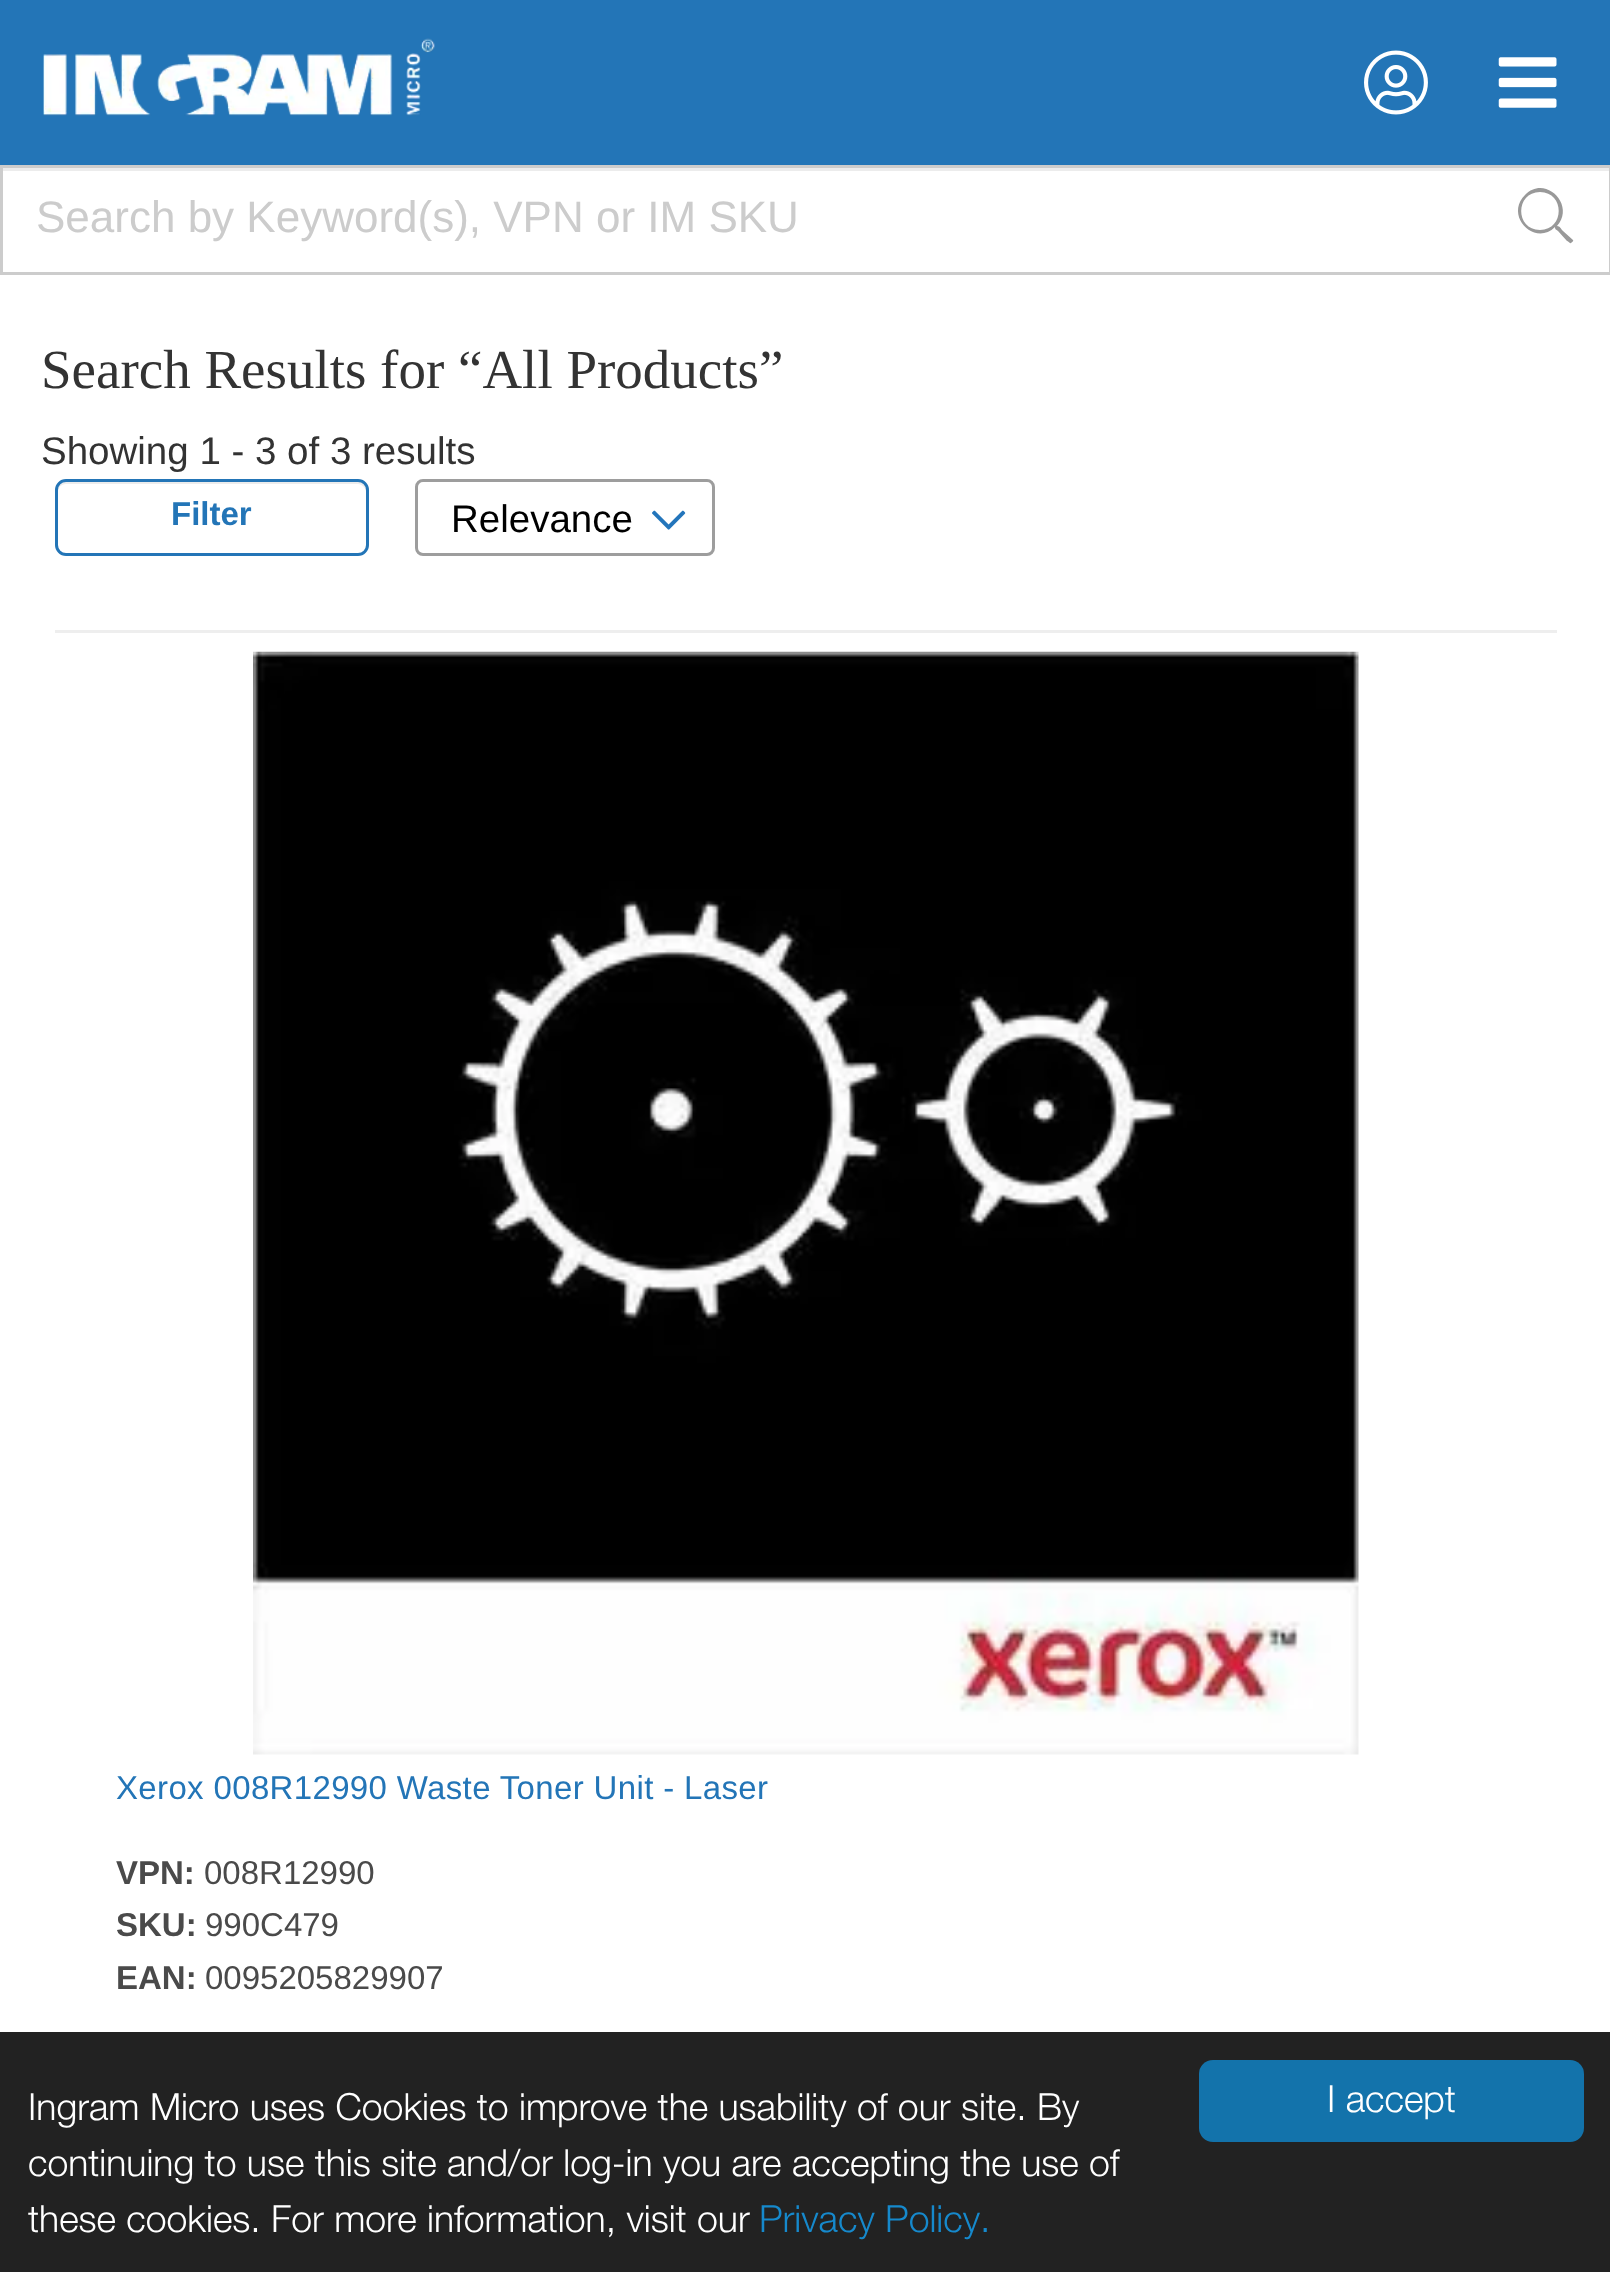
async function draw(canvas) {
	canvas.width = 1610;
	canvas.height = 2272;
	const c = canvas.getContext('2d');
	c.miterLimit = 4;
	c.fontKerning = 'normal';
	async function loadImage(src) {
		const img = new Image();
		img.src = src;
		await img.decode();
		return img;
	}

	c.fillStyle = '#fff';
	c.fillRect(0, 0, 1610, 2272);
	c.fillStyle = '#2375b7';
	c.fillRect(0, 0, 1610, 165);
	c.drawImage(await loadImage('img1.png'), 43, 38, 392, 78);
	c.drawImage(await loadImage('img2.png'), 1364, 50, 64, 65);
	c.drawImage(await loadImage('img3.png'), 1498, 57, 59, 51);
	c.fillStyle = '#ececec';
	c.fillRect(3, 168, 1606, 3);
	c.strokeStyle = '#ccc';
	c.lineWidth = 3;
	c.strokeRect(1.5, 166.5, 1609, 107);
	c.font = '44px Liberation Sans';
	c.fillStyle = '#ccc';
	c.fillText('Search by Keyword(s), VPN or IM SKU', 36, 232);
	c.fillStyle = '#999';
	c.beginPath();
	c.moveTo(1573, 240);
	c.lineTo(1563, 231);
	c.bezierCurveTo(1561, 229, 1560, 226, 1557, 226);
	c.bezierCurveTo(1576, 205, 1545, 174, 1525, 195);
	c.bezierCurveTo(1504, 216, 1535, 247, 1555, 227);
	c.bezierCurveTo(1555, 230, 1556, 229, 1558, 231);
	c.lineTo(1567, 241);
	c.bezierCurveTo(1568, 241, 1570, 244, 1571, 243);
	c.bezierCurveTo(1572, 242, 1574, 241, 1573, 240);
	c.closePath();
	c.moveTo(1540, 230);
	c.bezierCurveTo(1515, 230, 1515, 192, 1540, 192);
	c.bezierCurveTo(1565, 192, 1565, 230, 1540, 230);
	c.closePath();
	c.fill();
	c.font = '55px Liberation Serif';
	c.fillStyle = '#333';
	c.fillText('Search Results for “All Products”', 41, 388);
	c.font = '38.5px Liberation Sans';
	c.fillText('Showing 1 - 3 of 3 results', 41, 464);
	c.fillStyle = '#ececec';
	c.beginPath();
	c.moveTo(66, 484);
	c.lineTo(358, 484);
	c.bezierCurveTo(362, 484, 366, 488, 366, 492);
	c.lineTo(366, 489);
	c.bezierCurveTo(366, 485, 362, 481, 358, 481);
	c.lineTo(66, 481);
	c.bezierCurveTo(62, 481, 58, 485, 58, 489);
	c.lineTo(58, 492);
	c.bezierCurveTo(58, 488, 61, 484, 66, 484);
	c.closePath();
	c.fill();
	c.beginPath();
	c.roundRect(56.5, 480.5, 311, 74, 9.5);
	c.strokeStyle = '#2375b7';
	c.stroke();
	c.font = 'bold 33px Liberation Sans';
	c.fillStyle = '#2375b7';
	c.fillText('Filter', 171, 525);
	c.beginPath();
	c.roundRect(416.5, 480.5, 297, 74, 6.5);
	c.strokeStyle = '#9d9d9d';
	c.stroke();
	c.font = '38.5px Liberation Sans';
	c.fillStyle = '#000';
	c.fillText('Relevance', 451, 532);
	c.drawImage(await loadImage('img4.png'), 652, 510, 34, 20);
	c.fillStyle = '#eee';
	c.fillRect(55, 630, 1502, 3);
	c.drawImage(await loadImage('img5.png'), 253, 651, 1106, 1104);
	c.letterSpacing = '0.35px';
	c.font = '33px Liberation Sans';
	c.fillStyle = '#2375b7';
	c.fillText('Xerox 008R12990 Waste Toner Unit - Laser', 116, 1799);
	c.letterSpacing = '0px';
	c.font = 'bold 33px Liberation Sans';
	c.fillStyle = '#4a4a4a';
	c.fillText('VPN:', 116, 1884);
	c.font = '33px Liberation Sans';
	c.fillText('008R12990', 204, 1884);
	c.font = 'bold 33px Liberation Sans';
	c.fillText('SKU:', 116, 1936);
	c.font = '33px Liberation Sans';
	c.fillText('990C479', 205, 1936);
	c.font = 'bold 33px Liberation Sans';
	c.fillText('EAN:', 116, 1989);
	c.font = '33px Liberation Sans';
	c.fillText('0095205829907', 205, 1989);
	c.fillStyle = '#222';
	c.fillRect(0, 2032, 1610, 240);
	c.font = '300 37.4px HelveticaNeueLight';
	c.fillStyle = '#fff';
	for (const [text, x, y] of [
		['Ingram Micro uses Cookies to improve the usability of our site. By', 28, 2120],
		['continuing to use this site and/or log-in you are accepting the use of', 28, 2176],
		['these cookies. For more information, visit our', 28, 2232],
	]) {
		c.fillText(text, x, y);
	}
	c.fillStyle = '#1689cc';
	c.fillText('Privacy Policy.', 759, 2232);
	c.fillStyle = '#1373ab';
	c.beginPath();
	c.roundRect(1199, 2060, 385, 82, 14);
	c.fill();
	c.fillStyle = '#fff';
	c.fillText('I accept', 1327, 2112);
}

draw(document.querySelector('canvas'));
